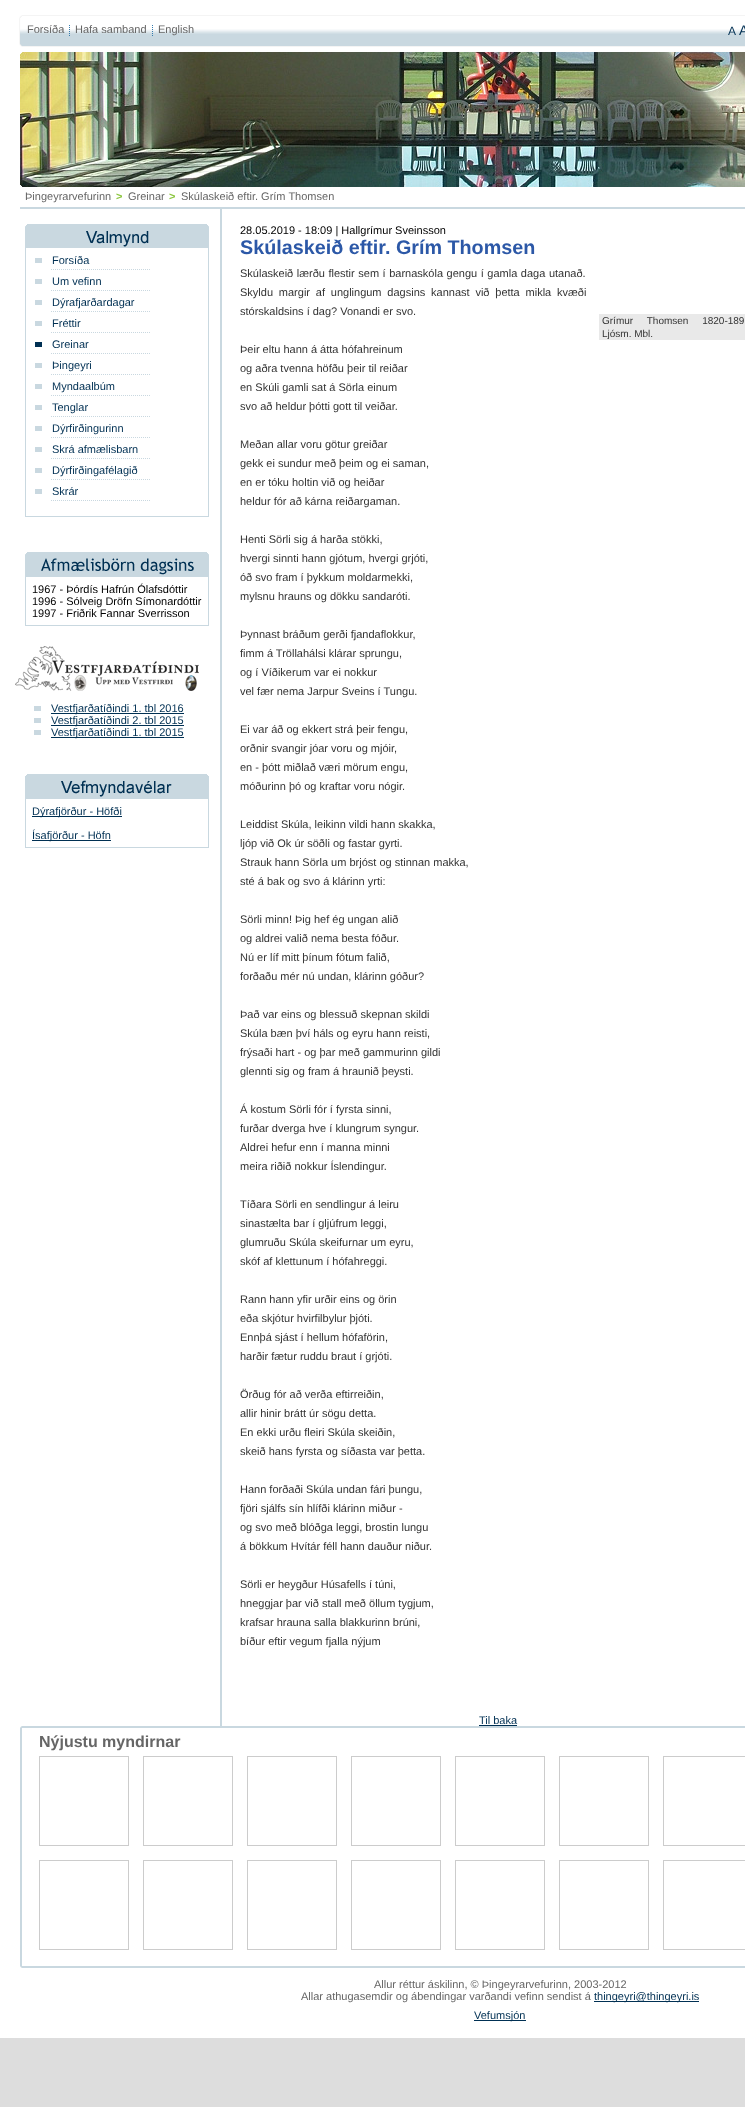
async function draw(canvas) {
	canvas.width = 745;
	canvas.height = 2107;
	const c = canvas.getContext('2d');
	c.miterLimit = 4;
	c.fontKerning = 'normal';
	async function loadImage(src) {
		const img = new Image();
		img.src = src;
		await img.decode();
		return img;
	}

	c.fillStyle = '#ddd';
	c.fillRect(0, 0, 745, 2107);
	c.fillStyle = '#fff';
	c.fillRect(0, 0, 745, 2038);
	c.fillStyle = '#c9d8e0';
	c.fillRect(220, 209, 2, 1517);
	c.drawImage(await loadImage('img1.png'), 19, 15, 3, 32);
	c.drawImage(await loadImage('img2.png'), 22, 16, 723, 30);
	c.fillStyle = '#f4f4f4';
	c.fillRect(22, 15, 723, 1);
	c.fillRect(22, 46, 723, 1);
	c.font = '11px Liberation Sans';
	c.fillStyle = '#666';
	c.fillText('Forsíða', 27, 33);
	c.drawImage(await loadImage('img3.png'), 69, 25, 1, 11);
	c.fillText('Hafa samband', 75, 33);
	c.drawImage(await loadImage('img3.png'), 152, 25, 1, 11);
	c.fillText('English', 158, 33);
	c.font = '12px Liberation Sans';
	c.fillStyle = '#003053';
	c.fillText('A', 728, 35);
	c.font = '14px Liberation Sans';
	c.fillText('A', 739, 35);
	c.drawImage(await loadImage('img4.png'), 20, 52, 725, 135);
	c.fillStyle = '#c9d8e0';
	c.fillRect(20, 207, 725, 2);
	c.font = '11px Liberation Sans';
	c.fillStyle = '#666';
	c.fillText('Þingeyrarvefurinn', 25, 200);
	c.font = 'bold 11px Liberation Sans';
	c.fillStyle = '#8cc63f';
	c.fillText('>', 116, 200);
	c.font = '11px Liberation Sans';
	c.fillStyle = '#666';
	c.fillText('Greinar', 128, 200);
	c.font = 'bold 11px Liberation Sans';
	c.fillStyle = '#8cc63f';
	c.fillText('>', 169, 200);
	c.font = '11px Liberation Sans';
	c.fillStyle = '#666';
	c.fillText('Skúlaskeið eftir. Grím Thomsen', 181, 200);
	c.drawImage(await loadImage('img5.png'), 25, 224, 184, 24);
	for (const [x, y, w, h, color] of [
		[208, 248, 1, 269, '#c9d8e0'],
		[25, 516, 184, 1, '#c9d8e0'],
		[25, 248, 1, 269, '#c9d8e0'],
	]) {
		c.fillStyle = color;
		c.fillRect(x, y, w, h);
	}
	c.drawImage(await loadImage('img6.png'), 51, 269, 99, 1);
	c.fillRect(35, 258, 7, 5);
	c.fillStyle = '#003053';
	c.fillText('Forsíða', 52, 264);
	c.drawImage(await loadImage('img6.png'), 51, 290, 99, 1);
	c.fillStyle = '#c9d8e0';
	c.fillRect(35, 279, 7, 5);
	c.fillStyle = '#003053';
	c.fillText('Um vefinn', 52, 285);
	c.drawImage(await loadImage('img6.png'), 51, 311, 99, 1);
	c.fillStyle = '#c9d8e0';
	c.fillRect(35, 300, 7, 5);
	c.fillStyle = '#003053';
	c.fillText('Dýrafjarðardagar', 52, 306);
	c.drawImage(await loadImage('img6.png'), 51, 332, 99, 1);
	c.fillStyle = '#c9d8e0';
	c.fillRect(35, 321, 7, 5);
	c.fillStyle = '#003053';
	c.fillText('Fréttir', 52, 327);
	c.drawImage(await loadImage('img6.png'), 51, 353, 99, 1);
	c.fillRect(35, 342, 7, 5);
	c.fillText('Greinar', 52, 348);
	c.drawImage(await loadImage('img6.png'), 51, 374, 99, 1);
	c.fillStyle = '#c9d8e0';
	c.fillRect(35, 363, 7, 5);
	c.fillStyle = '#003053';
	c.fillText('Þingeyri', 52, 369);
	c.drawImage(await loadImage('img6.png'), 51, 395, 99, 1);
	c.fillStyle = '#c9d8e0';
	c.fillRect(35, 384, 7, 5);
	c.fillStyle = '#003053';
	c.fillText('Myndaalbúm', 52, 390);
	c.drawImage(await loadImage('img6.png'), 51, 416, 99, 1);
	c.fillStyle = '#c9d8e0';
	c.fillRect(35, 405, 7, 5);
	c.fillStyle = '#003053';
	c.fillText('Tenglar', 52, 411);
	c.drawImage(await loadImage('img6.png'), 51, 437, 99, 1);
	c.fillStyle = '#c9d8e0';
	c.fillRect(35, 426, 7, 5);
	c.fillStyle = '#003053';
	c.fillText('Dýrfirðingurinn', 52, 432);
	c.drawImage(await loadImage('img6.png'), 51, 458, 99, 1);
	c.fillStyle = '#c9d8e0';
	c.fillRect(35, 447, 7, 5);
	c.fillStyle = '#003053';
	c.fillText('Skrá afmælisbarn', 52, 453);
	c.drawImage(await loadImage('img6.png'), 51, 479, 99, 1);
	c.fillStyle = '#c9d8e0';
	c.fillRect(35, 468, 7, 5);
	c.fillStyle = '#003053';
	c.fillText('Dýrfirðingafélagið', 52, 474);
	c.drawImage(await loadImage('img6.png'), 51, 500, 99, 1);
	c.fillStyle = '#c9d8e0';
	c.fillRect(35, 489, 7, 5);
	c.fillStyle = '#003053';
	c.fillText('Skrár', 52, 495);
	c.drawImage(await loadImage('img7.png'), 25, 552, 184, 24);
	c.strokeStyle = '#c9d8e0';
	c.strokeRect(25.5, 576.5, 183, 49);
	c.fillStyle = '#000';
	for (const [text, x, y] of [
		['1967 - Þórdís Hafrún Ólafsdóttir', 32, 593],
		['1996 - Sólveig Dröfn Símonardóttir', 32, 605],
		['1997 - Friðrik Fannar Sverrisson', 32, 617],
	]) {
		c.fillText(text, x, y);
	}
	c.drawImage(await loadImage('img8.png'), 15, 646, 184, 45);
	c.fillStyle = '#003053';
	c.fillRect(51, 713, 133, 1);
	c.fillText('Vestfjarðatíðindi 1. tbl 2016', 51, 712);
	c.fillStyle = '#c9d8e0';
	c.fillRect(34, 706, 7, 5);
	c.fillStyle = '#003053';
	c.fillRect(51, 725, 133, 1);
	c.fillText('Vestfjarðatíðindi 2. tbl 2015', 51, 724);
	c.fillStyle = '#c9d8e0';
	c.fillRect(34, 718, 7, 5);
	c.fillStyle = '#003053';
	c.fillRect(51, 737, 133, 1);
	c.fillText('Vestfjarðatíðindi 1. tbl 2015', 51, 736);
	c.fillStyle = '#c9d8e0';
	c.fillRect(34, 730, 7, 5);
	c.drawImage(await loadImage('img9.png'), 25, 774, 184, 24);
	c.strokeRect(25.5, 798.5, 183, 49);
	c.fillStyle = '#003053';
	c.fillRect(32, 816, 90, 1);
	c.fillText('Dýrafjörður - Höfði', 32, 815);
	c.fillRect(32, 840, 79, 1);
	c.fillText('Ísafjörður - Höfn', 32, 839);
	c.fillStyle = '#000';
	c.fillText('28.05.2019 - 18:09 | Hallgrímur Sveinsson', 240, 234);
	c.font = 'bold 19.75px Liberation Sans';
	c.fillStyle = '#2c58a7';
	c.fillText('Skúlaskeið eftir. Grím Thomsen', 240, 254);
	c.wordSpacing = '0.5px';
	c.font = '11px Liberation Sans';
	c.fillStyle = '#333';
	c.fillText('Skúlaskeið lærðu flestir sem í barnaskóla gengu í gamla daga utanað.', 240, 277);
	c.wordSpacing = '2.75px';
	c.fillText('Skyldu margir af unglingum dagsins kannast við þetta mikla kvæði', 240, 296);
	c.wordSpacing = '0px';
	c.fillText('stórskaldsins í dag? Vonandi er svo.', 240, 315);
	c.fillStyle = '#e9e9e9';
	c.fillRect(599, 314, 146, 26);
	c.wordSpacing = '11px';
	c.font = '10px Liberation Sans';
	c.fillStyle = '#333';
	c.fillText('Grímur Thomsen 1820-189', 602, 324);
	c.wordSpacing = '0px';
	c.fillText('Ljósm. Mbl.', 602, 337);
	c.font = '11px Liberation Sans';
	for (const [text, x, y] of [
		['Þeir eltu hann á átta hófahreinum', 240, 353],
		['og aðra tvenna höfðu þeir til reiðar', 240, 372],
		['en Skúli gamli sat á Sörla einum', 240, 391],
		['svo að heldur þótti gott til veiðar.', 240, 410],
		['Meðan allar voru götur greiðar', 240, 448],
		['gekk ei sundur með þeim og ei saman,', 240, 467],
		['en er tóku holtin við og heiðar', 240, 486],
		['heldur fór að kárna reiðargaman.', 240, 505],
		['Henti Sörli sig á harða stökki,', 240, 543],
		['hvergi sinnti hann gjótum, hvergi grjóti,', 240, 562],
		['óð svo fram í þykkum moldarmekki,', 240, 581],
		['mylsnu hrauns og dökku sandaróti.', 240, 600],
		['Þynnast bráðum gerði fjandaflokkur,', 240, 638],
		['fimm á Tröllahálsi klárar sprungu,', 240, 657],
		['og í Víðikerum var ei nokkur', 240, 676],
		['vel fær nema Jarpur Sveins í Tungu.', 240, 695],
		['Ei var áð og ekkert strá þeir fengu,', 240, 733],
		['orðnir svangir jóar voru og mjóir,', 240, 752],
		['en - þótt miðlað væri mörum engu,', 240, 771],
		['móðurinn þó og kraftar voru nógir.', 240, 790],
		['Leiddist Skúla, leikinn vildi hann skakka,', 240, 828],
		['ljóp við Ok úr söðli og fastar gyrti.', 240, 847],
		['Strauk hann Sörla um brjóst og stinnan makka,', 240, 866],
		['sté á bak og svo á klárinn yrti:', 240, 885],
		['Sörli minn! Þig hef ég ungan alið', 240, 923],
		['og aldrei valið nema besta fóður.', 240, 942],
		['Nú er líf mitt þínum fótum falið,', 240, 961],
		['forðaðu mér nú undan, klárinn góður?', 240, 980],
		['Það var eins og blessuð skepnan skildi', 240, 1018],
		['Skúla bæn því háls og eyru hann reisti,', 240, 1037],
		['frýsaði hart - og þar með gammurinn gildi', 240, 1056],
		['glennti sig og fram á hraunið þeysti.', 240, 1075],
		['Á kostum Sörli fór í fyrsta sinni,', 240, 1113],
		['furðar dverga hve í klungrum syngur.', 240, 1132],
		['Aldrei hefur enn í manna minni', 240, 1151],
		['meira riðið nokkur Íslendingur.', 240, 1170],
		['Tíðara Sörli en sendlingur á leiru', 240, 1208],
		['sinastælta bar í gljúfrum leggi,', 240, 1227],
		['glumruðu Skúla skeifurnar um eyru,', 240, 1246],
		['skóf af klettunum í hófahreggi.', 240, 1265],
		['Rann hann yfir urðir eins og örin', 240, 1303],
		['eða skjótur hvirfilbylur þjóti.', 240, 1322],
		['Ennþá sjást í hellum hófaförin,', 240, 1341],
		['harðir fætur ruddu braut í grjóti.', 240, 1360],
		['Örðug fór að verða eftirreiðin,', 240, 1398],
		['allir hinir brátt úr sögu detta.', 240, 1417],
		['En ekki urðu fleiri Skúla skeiðin,', 240, 1436],
		['skeið hans fyrsta og síðasta var þetta.', 240, 1455],
		['Hann forðaði Skúla undan fári þungu,', 240, 1493],
		['fjöri sjálfs sín hlífði klárinn miður -', 240, 1512],
		['og svo með blóðga leggi, brostin lungu', 240, 1531],
		['á bökkum Hvítár féll hann dauður niður.', 240, 1550],
		['Sörli er heygður Húsafells í túni,', 240, 1588],
		['hneggjar þar við stall með öllum tygjum,', 240, 1607],
		['krafsar hrauna salla blakkurinn brúni,', 240, 1626],
		['bíður eftir vegum fjalla nýjum', 240, 1645],
	]) {
		c.fillText(text, x, y);
	}
	c.fillStyle = '#003053';
	c.fillText('Til baka', 479, 1724);
	c.fillRect(479, 1725, 38, 1);
	c.drawImage(await loadImage('img10.png'), 20, 1726, 2, 2);
	c.fillStyle = '#c9d8e0';
	c.fillRect(22, 1726, 723, 2);
	c.fillRect(20, 1728, 2, 238);
	c.font = 'bold 16px Liberation Sans';
	c.fillStyle = '#666';
	c.fillText('Nýjustu myndirnar', 39, 1747);
	c.strokeStyle = '#ccc';
	c.strokeRect(39.5, 1756.5, 89, 89);
	c.strokeRect(143.5, 1756.5, 89, 89);
	c.strokeRect(247.5, 1756.5, 89, 89);
	c.strokeRect(351.5, 1756.5, 89, 89);
	c.strokeRect(455.5, 1756.5, 89, 89);
	c.strokeRect(559.5, 1756.5, 89, 89);
	c.strokeRect(663.5, 1756.5, 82, 89);
	c.strokeRect(39.5, 1860.5, 89, 89);
	c.strokeRect(143.5, 1860.5, 89, 89);
	c.strokeRect(247.5, 1860.5, 89, 89);
	c.strokeRect(351.5, 1860.5, 89, 89);
	c.strokeRect(455.5, 1860.5, 89, 89);
	c.strokeRect(559.5, 1860.5, 89, 89);
	c.strokeRect(663.5, 1860.5, 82, 89);
	c.drawImage(await loadImage('img11.png'), 20, 1966, 2, 2);
	c.fillStyle = '#c9d8e0';
	c.fillRect(22, 1966, 723, 2);
	c.font = '11px Liberation Sans';
	c.fillStyle = '#666';
	c.fillText('Allur réttur áskilinn, © Þingeyrarvefurinn, 2003-2012', 374, 1988);
	c.fillText('Allar athugasemdir og ábendingar varðandi vefinn sendist á', 301, 2000);
	c.fillStyle = '#003053';
	c.fillRect(594, 2001, 105, 1);
	c.fillText('thingeyri@thingeyri.is', 594, 2000);
	c.fillRect(474, 2020, 52, 1);
	c.fillText('Vefumsjón', 474, 2019);
}

draw(document.querySelector('canvas'));
